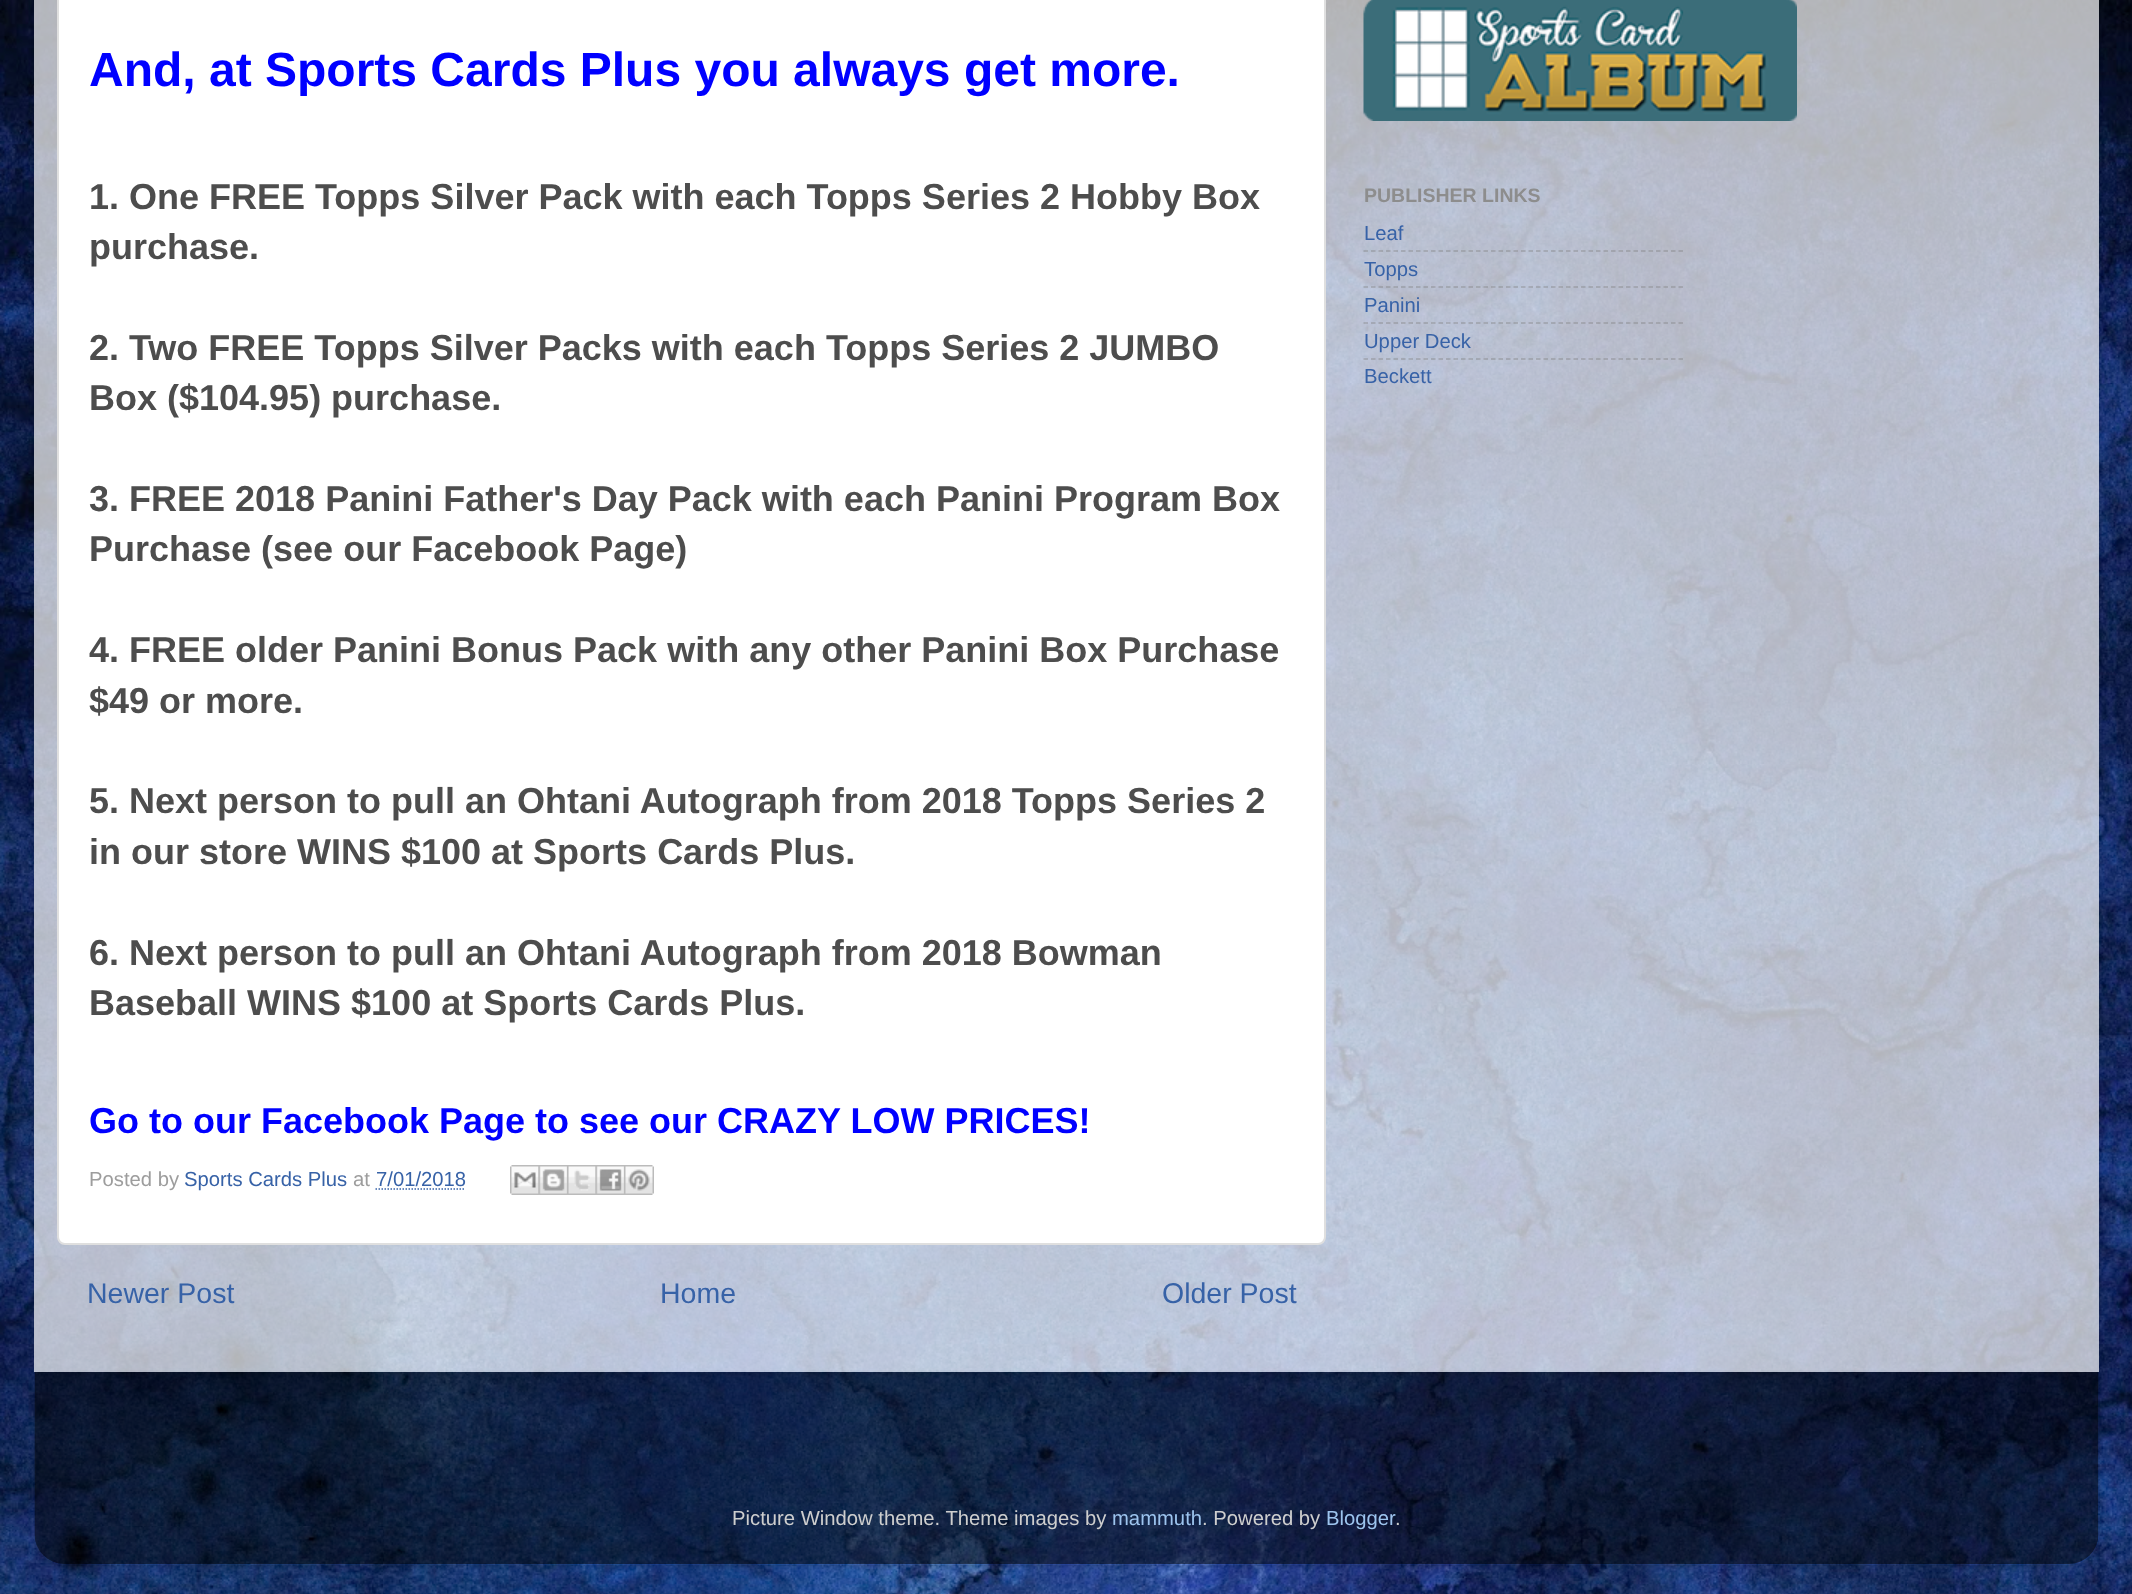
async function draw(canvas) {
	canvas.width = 2132;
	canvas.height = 1594;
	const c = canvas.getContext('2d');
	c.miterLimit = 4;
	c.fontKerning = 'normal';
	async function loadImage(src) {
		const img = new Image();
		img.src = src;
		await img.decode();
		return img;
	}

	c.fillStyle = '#fff';
	c.fillRect(0, 0, 2132, 1594);
	c.drawImage(await loadImage('img1.png'), 0, 0, 2132, 1594);
	c.save();
	c.beginPath();
	c.moveTo(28, 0);
	c.lineTo(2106, 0);
	c.lineTo(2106, 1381);
	c.lineTo(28, 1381);
	c.closePath();
	c.moveTo(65, -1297);
	c.lineTo(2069, -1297);
	c.bezierCurveTo(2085.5, -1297, 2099, -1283.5, 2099, -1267);
	c.lineTo(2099, 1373);
	c.lineTo(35, 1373);
	c.lineTo(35, -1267);
	c.bezierCurveTo(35, -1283.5, 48.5, -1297, 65, -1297);
	c.closePath();
	c.clip('evenodd');
	c.fillStyle = '#00000026';
	c.filter = 'blur(2px)';
	c.beginPath();
	c.roundRect(35, -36, 2064, 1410, 30);
	c.fill();
	c.filter = 'none';
	c.restore();
	c.fillStyle = '#ffffffb3';
	c.fillRect(34, 0, 2065, 1372);
	c.fillStyle = '#fff';
	c.beginPath();
	c.roundRect(58, -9, 1267, 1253, 7);
	c.fill();
	c.strokeStyle = '#dfdfdf';
	c.lineWidth = 2;
	c.stroke();
	c.font = 'bold 48px Liberation Sans';
	c.fillStyle = '#00f';
	c.fillText('And, at Sports Cards Plus you always get more.', 89, 86);
	c.font = 'bold 36px Liberation Sans';
	c.fillStyle = '#4d4d4d';
	for (const [text, x, y] of [
		['1. One FREE Topps Silver Pack with each Topps Series 2 Hobby Box', 89, 209],
		['purchase.', 89, 259],
		['2. Two FREE Topps Silver Packs with each Topps Series 2 JUMBO', 89, 360],
		['Box ($104.95) purchase.', 89, 410],
		['3. FREE 2018 Panini Father\'s Day Pack with each Panini Program Box', 89, 511],
		['Purchase (see our Facebook Page)', 89, 561],
		['4. FREE older Panini Bonus Pack with any other Panini Box Purchase', 89, 662],
		['$49 or more.', 89, 713],
		['5. Next person to pull an Ohtani Autograph from 2018 Topps Series 2', 89, 813],
		['in our store WINS $100 at Sports Cards Plus.', 89, 864],
		['6. Next person to pull an Ohtani Autograph from 2018 Bowman', 89, 965],
		['Baseball WINS $100 at Sports Cards Plus.', 89, 1015],
	]) {
		c.fillText(text, x, y);
	}
	c.fillStyle = '#00f';
	c.fillText('Go to our Facebook Page to see our CRAZY LOW PRICES!', 89, 1133);
	c.font = '20.25px Liberation Sans';
	c.fillStyle = '#9d9d9d';
	c.fillText('Posted by', 89, 1186);
	c.fillStyle = '#3762a7';
	c.fillText('Sports Cards Plus', 184, 1186);
	c.fillStyle = '#9d9d9d';
	c.fillText('at', 353, 1186);
	c.fillStyle = '#3762a7';
	c.fillText('7/01/2018', 376, 1186);
	c.beginPath();
	c.moveTo(375.5, 1189);
	c.lineTo(465.5, 1189);
	c.strokeStyle = '#3762a7';
	c.lineWidth = 1.5;
	c.setLineDash([1.5, 1.5]);
	c.stroke();
	c.drawImage(await loadImage('img2.png'), 510, 1165, 29, 30);
	c.drawImage(await loadImage('img3.png'), 538, 1165, 29, 30);
	c.drawImage(await loadImage('img4.png'), 567, 1165, 29, 30);
	c.drawImage(await loadImage('img5.png'), 595, 1165, 29, 30);
	c.drawImage(await loadImage('img6.png'), 624, 1165, 30, 30);
	c.font = '28.5px Liberation Sans';
	for (const [text, x, y] of [
		['Newer Post', 87, 1303],
		['Home', 660, 1303],
		['Older Post', 1162, 1303],
	]) {
		c.fillText(text, x, y);
	}
	c.drawImage(await loadImage('img7.png'), 1363, 0, 434, 121);
	c.font = 'bold 19.5px Liberation Sans';
	c.fillStyle = '#8d8d8d';
	c.fillText('PUBLISHER LINKS', 1364, 202);
	c.font = '20.25px Liberation Sans';
	c.fillStyle = '#3762a7';
	c.fillText('Leaf', 1364, 240);
	c.beginPath();
	c.moveTo(1363.5, 251);
	c.lineTo(1683, 251);
	c.strokeStyle = '#80808080';
	c.setLineDash([4.5, 3]);
	c.stroke();
	c.fillText('Topps', 1364, 276);
	c.beginPath();
	c.moveTo(1363.5, 287);
	c.lineTo(1683, 287);
	c.stroke();
	c.fillText('Panini', 1364, 312);
	c.beginPath();
	c.moveTo(1363.5, 323);
	c.lineTo(1683, 323);
	c.stroke();
	c.fillText('Upper Deck', 1364, 348);
	c.beginPath();
	c.moveTo(1363.5, 359);
	c.lineTo(1683, 359);
	c.stroke();
	c.fillText('Beckett', 1364, 383);
	c.save();
	c.beginPath();
	c.moveTo(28, 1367);
	c.lineTo(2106, 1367);
	c.lineTo(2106, 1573);
	c.lineTo(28, 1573);
	c.closePath();
	c.moveTo(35, 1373);
	c.lineTo(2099, 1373);
	c.lineTo(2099, 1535);
	c.bezierCurveTo(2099, 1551.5, 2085.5, 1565, 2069, 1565);
	c.lineTo(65, 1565);
	c.bezierCurveTo(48.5, 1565, 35, 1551.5, 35, 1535);
	c.closePath();
	c.clip('evenodd');
	c.fillStyle = '#00000026';
	c.filter = 'blur(2px)';
	c.beginPath();
	c.roundRect(35, 1374, 2064, 192, 30);
	c.fill();
	c.filter = 'none';
	c.restore();
	c.drawImage(await loadImage('img8.png'), 34, 1372, 2065, 192);
	c.fillStyle = '#cecece';
	c.fillText('Picture Window theme. Theme images by', 732, 1525);
	c.fillStyle = '#9dc4ee';
	c.fillText('mammuth', 1112, 1525);
	c.fillStyle = '#cecece';
	c.fillText('. Powered by', 1202, 1525);
	c.fillStyle = '#9dc4ee';
	c.fillText('Blogger', 1326, 1525);
	c.fillStyle = '#cecece';
	c.fillText('.', 1395, 1525);
}

draw(document.querySelector('canvas'));
